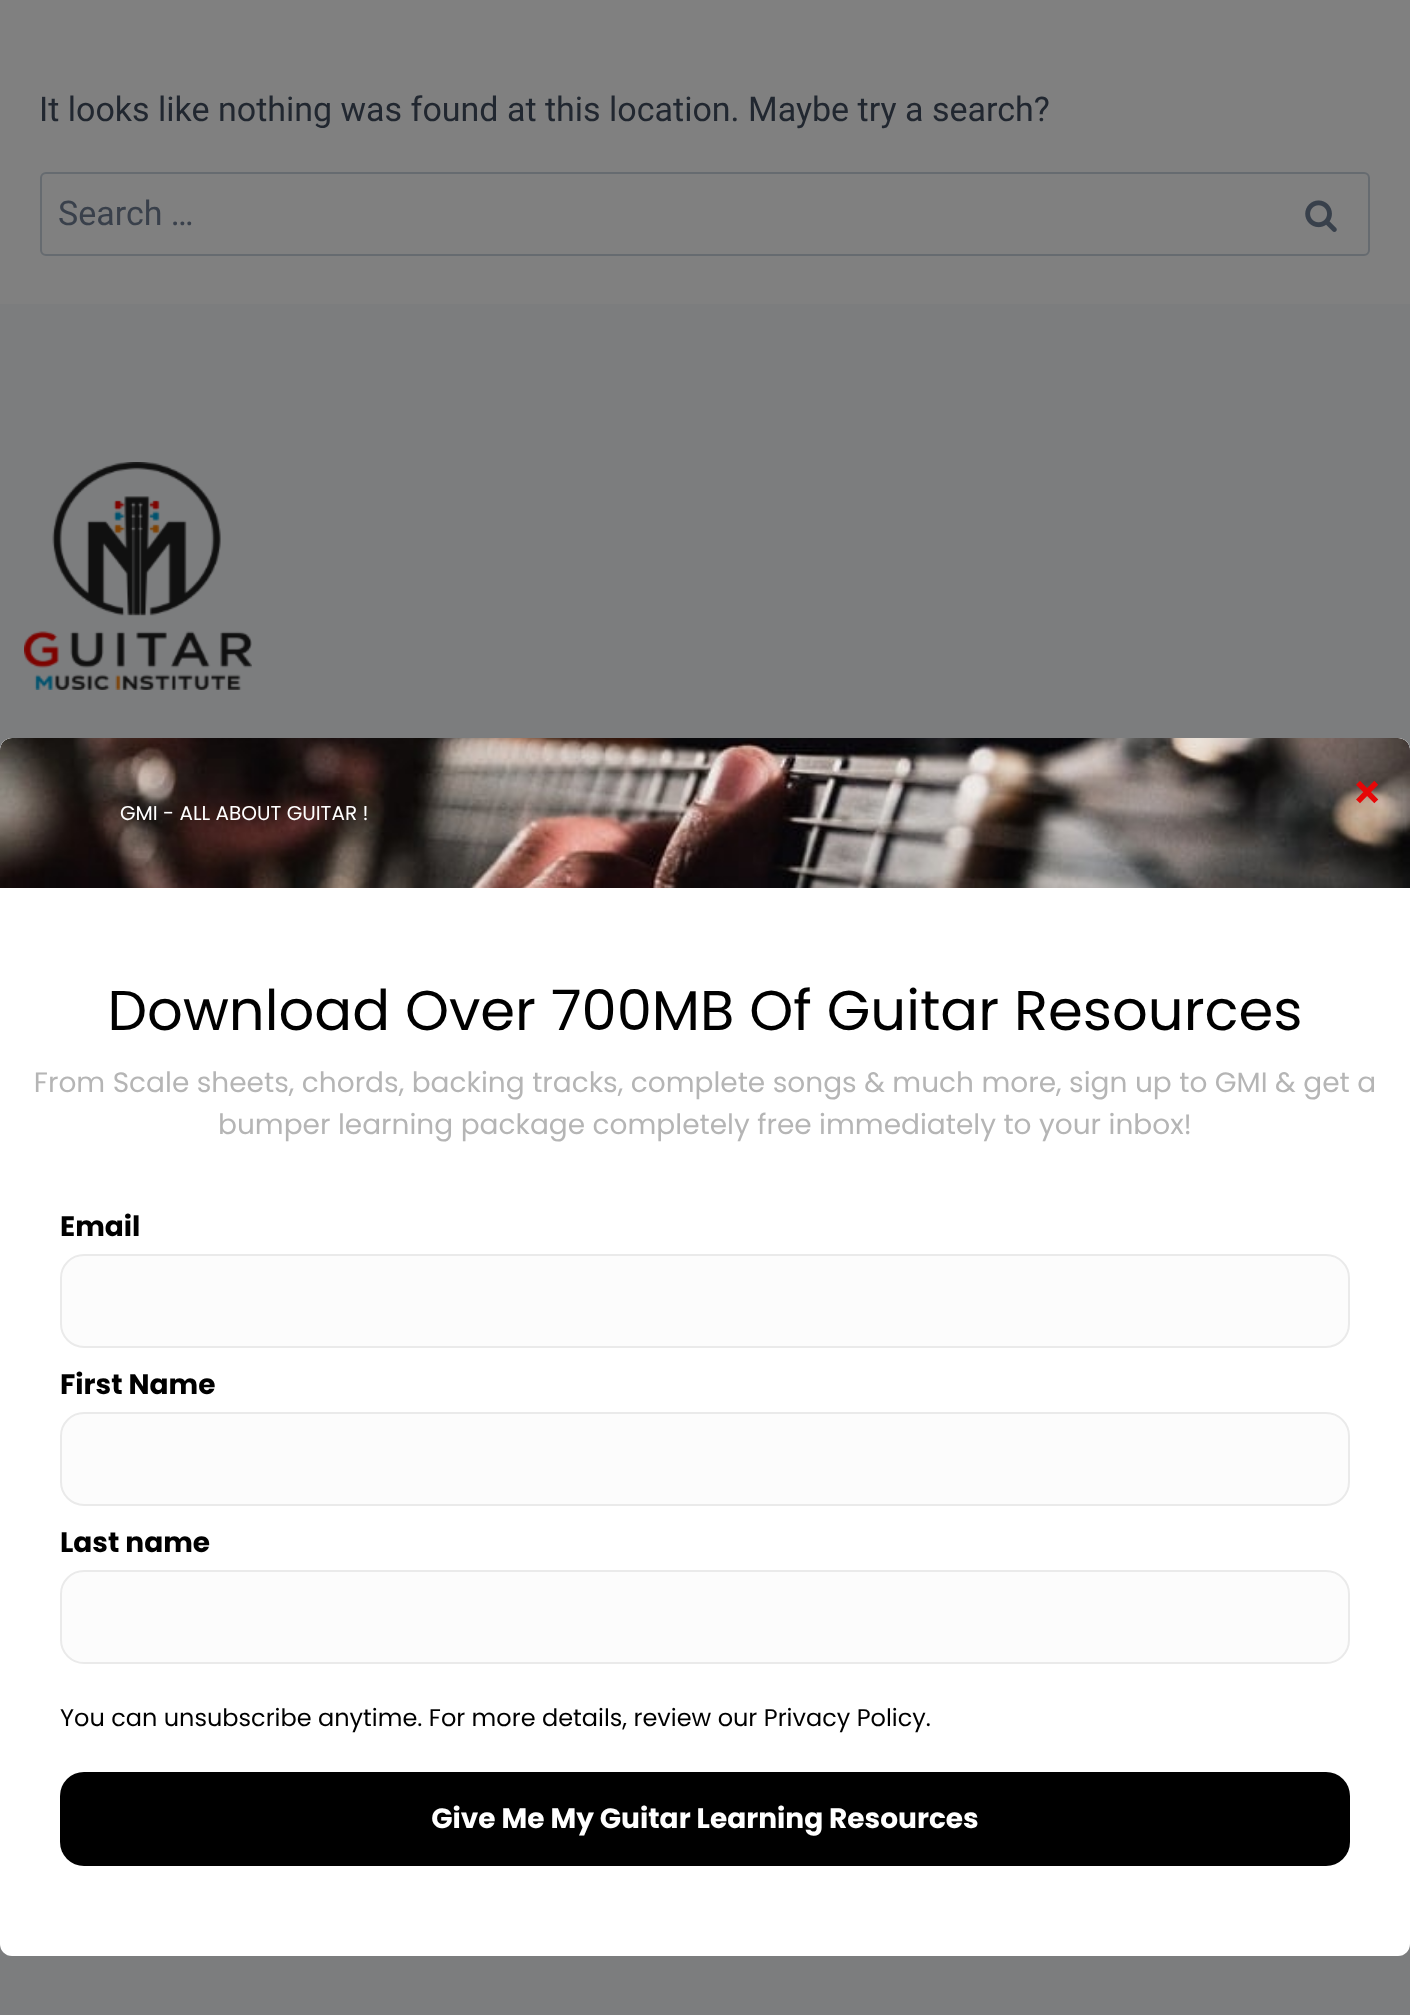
async function draw(canvas) {
	canvas.width = 1410;
	canvas.height = 2015;
	const c = canvas.getContext('2d');
	c.miterLimit = 4;
	c.fontKerning = 'normal';
	async function loadImage(src) {
		const img = new Image();
		img.src = src;
		await img.decode();
		return img;
	}

	c.fillStyle = '#7c7d7e';
	c.fillRect(0, 0, 1410, 2015);
	c.fillStyle = '#808080';
	c.fillRect(0, 0, 1410, 304);
	c.font = '34px Roboto';
	c.fillStyle = '#212730';
	c.fillText('It looks like nothing was found at this location. Maybe try a search?', 39, 121);
	c.beginPath();
	c.roundRect(41, 173, 1328, 82, 5);
	c.strokeStyle = '#666b70';
	c.lineWidth = 2;
	c.stroke();
	c.fillStyle = '#39404b';
	c.fillText('Search …', 58, 225);
	c.drawImage(await loadImage('img1.png'), 1305, 200, 32, 32);
	c.drawImage(await loadImage('img2.png'), 24, 462, 228, 228);
	c.drawImage(await loadImage('img3.png'), 0, 738, 1410, 1218);
}

draw(document.querySelector('canvas'));
